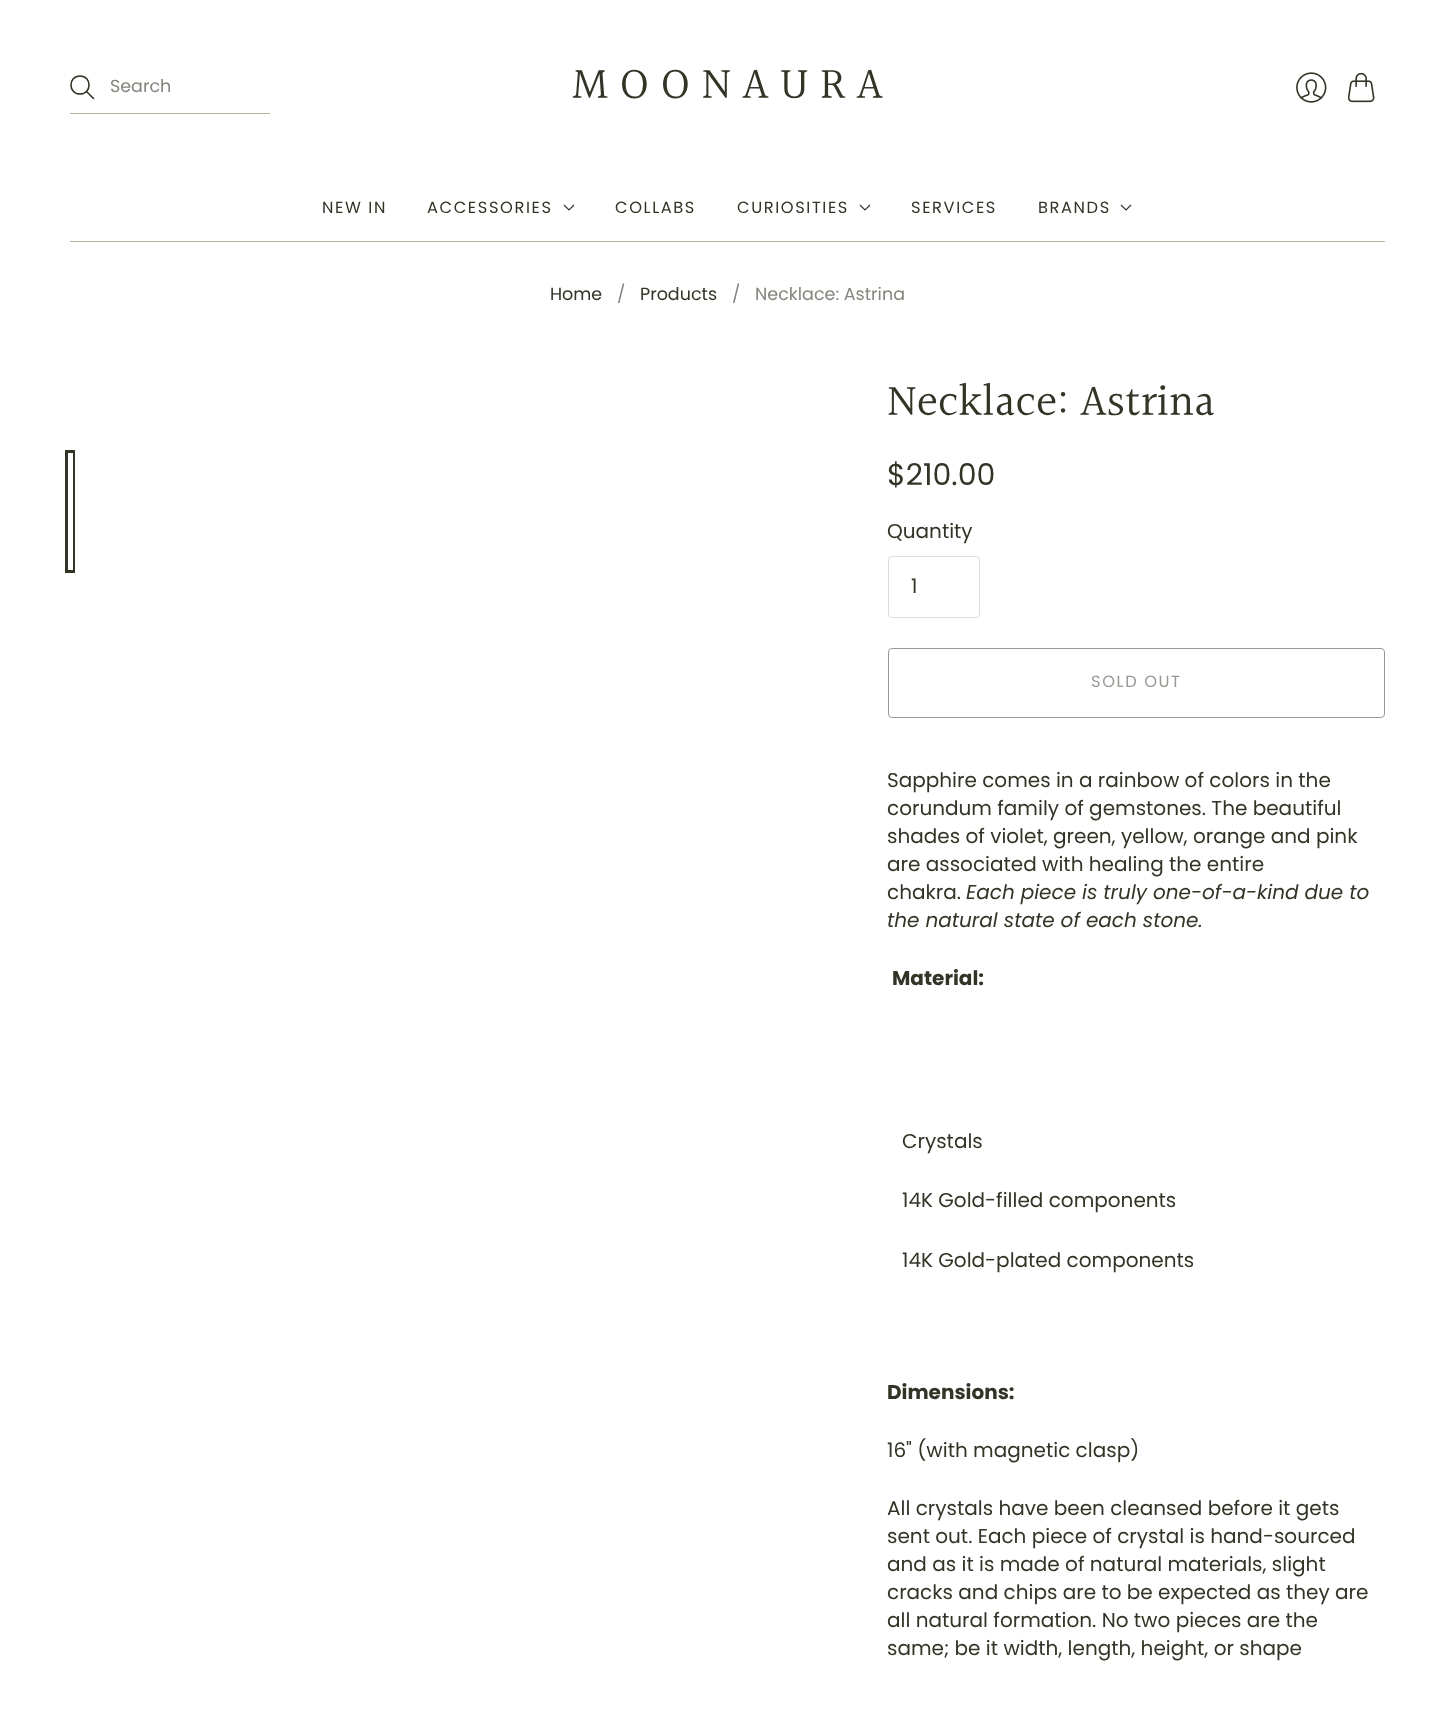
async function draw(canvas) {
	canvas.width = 1455;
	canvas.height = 1725;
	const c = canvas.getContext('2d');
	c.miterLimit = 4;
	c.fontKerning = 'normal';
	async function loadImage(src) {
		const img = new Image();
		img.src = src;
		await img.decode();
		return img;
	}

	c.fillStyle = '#fff';
	c.fillRect(0, 0, 1455, 1725);
	c.beginPath();
	c.moveTo(80, 94);
	c.bezierCurveTo(92, 94, 92, 76, 80, 76);
	c.bezierCurveTo(68, 76, 68, 94, 80, 94);
	c.closePath();
	c.moveTo(93.5, 98.5);
	c.lineTo(87, 92);
	c.strokeStyle = '#333326';
	c.lineWidth = 1.6;
	c.lineCap = 'round';
	c.lineJoin = 'round';
	c.stroke();
	c.font = '17.5px Poppins';
	c.fillStyle = '#85857d';
	c.fillText('Search', 110, 92);
	c.fillStyle = '#beb59f';
	c.fillRect(70, 113, 200, 1);
	c.drawImage(await loadImage('img1.png'), 1296, 72, 31, 31);
	c.drawImage(await loadImage('img2.png'), 1348, 73, 27, 30);
	c.fillRect(70, 241, 1315, 1);
	c.font = '45px Halant';
	c.fillStyle = '#333326';
	c.fillText('M O O N A U R A', 572, 100);
	c.letterSpacing = '1.6px';
	c.font = '16.25px Poppins';
	c.fillText('NEW IN', 322, 213);
	c.fillText('ACCESSORIES', 427, 213);
	c.beginPath();
	c.moveTo(564, 205);
	c.lineTo(569, 210);
	c.lineTo(574, 205);
	c.lineWidth = 1.2;
	c.lineCap = 'butt';
	c.lineJoin = 'miter';
	c.stroke();
	c.fillText('COLLABS', 615, 213);
	c.fillText('CURIOSITIES', 737, 213);
	c.beginPath();
	c.moveTo(860, 205);
	c.lineTo(865, 210);
	c.lineTo(870, 205);
	c.stroke();
	c.fillText('SERVICES', 911, 213);
	c.fillText('BRANDS', 1038, 213);
	c.beginPath();
	c.moveTo(1121, 205);
	c.lineTo(1126, 210);
	c.lineTo(1131, 205);
	c.stroke();
	c.letterSpacing = '0px';
	c.font = '17.5px Poppins';
	c.fillText('Home', 550, 300);
	c.fillStyle = '#85857d';
	c.fillText('/', 617, 300);
	c.fillStyle = '#333326';
	c.fillText('Products', 640, 300);
	c.fillStyle = '#85857d';
	c.fillText('/', 732, 300);
	c.fillText('Necklace: Astrina', 755, 300);
	c.fillStyle = '#333326';
	c.fillRect(65, 450, 10, 123);
	c.fillStyle = '#fff';
	c.fillRect(68, 453, 5, 117);
	c.font = '45px Halant';
	c.fillStyle = '#333326';
	c.fillText('Necklace: Astrina', 887, 417);
	c.font = '30px Poppins';
	c.fillText('$210.00', 887, 485);
	c.font = '20px Poppins';
	c.fillText('Quantity', 887, 538);
	c.beginPath();
	c.roundRect(888.5, 556.5, 91, 61, 3.5);
	c.strokeStyle = '#ddded7';
	c.lineWidth = 1;
	c.stroke();
	c.fillText('1', 911, 593);
	c.beginPath();
	c.roundRect(888.5, 648.5, 496, 69, 3.5);
	c.strokeStyle = '#999993';
	c.stroke();
	c.letterSpacing = '1.6px';
	c.font = '16.25px Poppins';
	c.fillStyle = '#999993';
	c.fillText('SOLD OUT', 1091, 687);
	c.letterSpacing = '0px';
	c.font = '20px Poppins';
	c.fillStyle = '#333326';
	for (const [text, x, y] of [
		['Sapphire comes in a rainbow of colors in the', 887, 787],
		['corundum family of gemstones. The beautiful', 887, 815],
		['shades of violet, green, yellow, orange and pink', 887, 843],
		['are associated with healing the entire', 887, 871],
		['chakra.', 887, 899],
	]) {
		c.fillText(text, x, y);
	}
	c.font = 'italic 20px Poppins';
	c.fillText('Each piece is truly one-of-a-kind due to', 966, 899);
	c.fillText('the natural state of each stone.', 887, 927);
	c.font = 'bold 20px Poppins';
	c.fillText('Material:', 892, 985);
	c.font = '20px Poppins';
	for (const [text, x, y] of [
		['Crystals', 902, 1148],
		['14K Gold-filled components', 902, 1207],
		['14K Gold-plated components', 902, 1267],
	]) {
		c.fillText(text, x, y);
	}
	c.font = 'bold 20px Poppins';
	c.fillText('Dimensions:', 887, 1399);
	c.font = '20px Poppins';
	for (const [text, x, y] of [
		['16" (with magnetic clasp)', 887, 1457],
		['All crystals have been cleansed before it gets', 887, 1515],
		['sent out. Each piece of crystal is hand-sourced', 887, 1543],
		['and as it is made of natural materials, slight', 887, 1571],
		['cracks and chips are to be expected as they are', 887, 1599],
		['all natural formation. No two pieces are the', 887, 1627],
		['same; be it width, length, height, or shape', 887, 1655],
	]) {
		c.fillText(text, x, y);
	}
}

draw(document.querySelector('canvas'));
